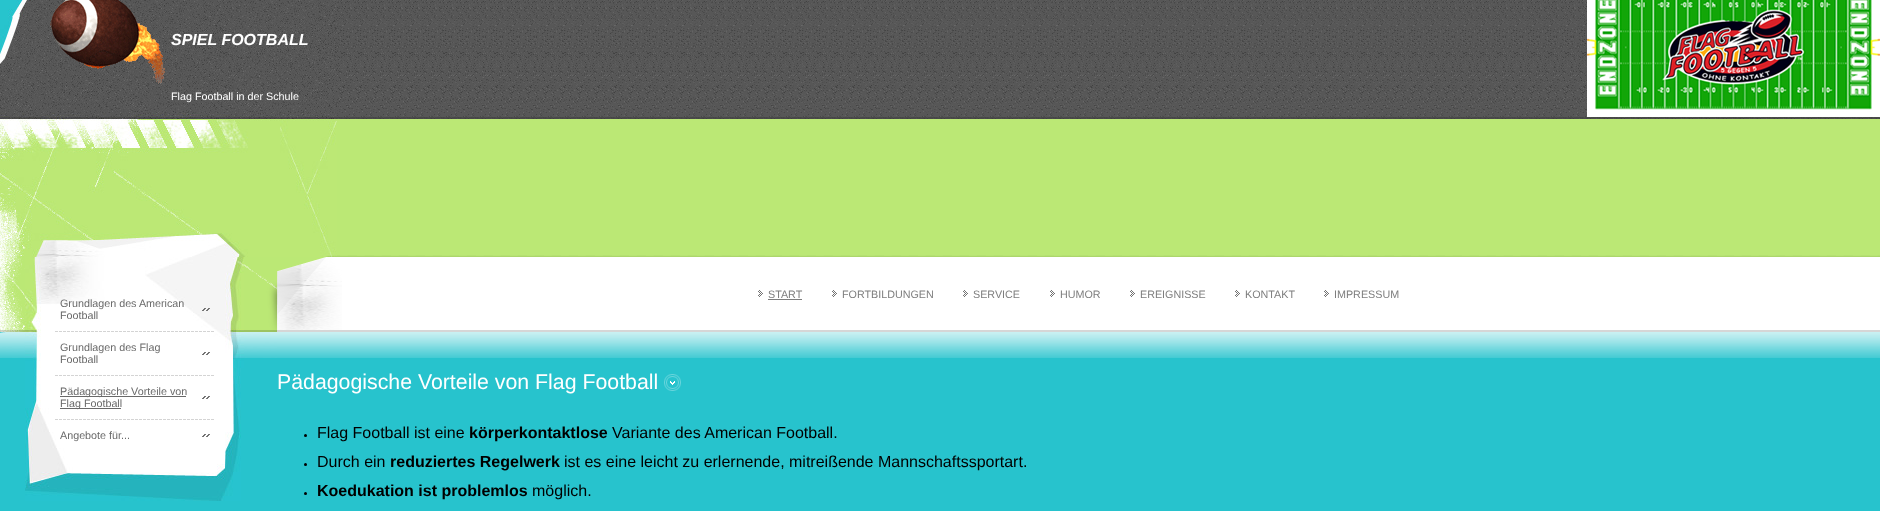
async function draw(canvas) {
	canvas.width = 1880;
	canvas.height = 511;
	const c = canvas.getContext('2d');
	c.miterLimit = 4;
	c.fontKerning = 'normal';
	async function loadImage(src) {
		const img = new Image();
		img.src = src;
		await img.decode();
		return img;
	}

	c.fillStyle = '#27c3cd';
	c.fillRect(0, 0, 1880, 511);
	c.drawImage(await loadImage('img1.png'), 337, 0, 1543, 257);
	c.drawImage(await loadImage('img2.png'), 0, 0, 337, 257);
	c.drawImage(await loadImage('img3.png'), 1587, 0, 293, 117);
	c.drawImage(await loadImage('img4.png'), 50, 0, 115, 84);
	c.font = 'italic bold 16px Liberation Sans';
	c.fillStyle = '#fff';
	c.fillText('SPIEL FOOTBALL', 171, 45);
	c.font = '10.75px Liberation Sans';
	c.fillText('Flag Football in der Schule', 171, 100);
	c.drawImage(await loadImage('img5.png'), 0, 257, 277, 101);
	c.drawImage(await loadImage('img6.png'), 241, 368, 3, 133);
	c.drawImage(await loadImage('img7.png'), 25, 257, 219, 111);
	c.drawImage(await loadImage('img8.png'), 25, 368, 216, 133);
	c.fillStyle = '#696969';
	c.fillText('Grundlagen des American', 60, 307);
	c.fillText('Football', 60, 319);
	c.drawImage(await loadImage('img9.png'), 202, 308, 8, 3);
	c.drawImage(await loadImage('img10.png'), 55, 331, 159, 1);
	c.fillText('Grundlagen des Flag', 60, 351);
	c.fillText('Football', 60, 363);
	c.drawImage(await loadImage('img11.png'), 202, 352, 8, 3);
	c.drawImage(await loadImage('img10.png'), 55, 375, 159, 1);
	c.fillRect(60, 396, 126, 1);
	c.fillText('Pädagogische Vorteile von', 60, 395);
	c.fillRect(60, 408, 61, 1);
	c.fillText('Flag Football', 60, 407);
	c.drawImage(await loadImage('img11.png'), 202, 396, 8, 3);
	c.drawImage(await loadImage('img10.png'), 55, 419, 159, 1);
	c.fillText('Angebote für...', 60, 439);
	c.drawImage(await loadImage('img11.png'), 202, 434, 8, 3);
	c.drawImage(await loadImage('img12.png'), 277, 257, 1603, 101);
	c.drawImage(await loadImage('img13.png'), 277, 257, 65, 73);
	c.drawImage(await loadImage('img14.png'), 758, 290, 5, 7);
	c.fillStyle = '#7e7e7e';
	c.fillText('START', 768, 298);
	c.fillRect(768, 299, 34, 1);
	c.drawImage(await loadImage('img14.png'), 832, 290, 5, 7);
	c.fillText('FORTBILDUNGEN', 842, 298);
	c.drawImage(await loadImage('img14.png'), 963, 290, 5, 7);
	c.fillText('SERVICE', 973, 298);
	c.drawImage(await loadImage('img14.png'), 1050, 290, 5, 7);
	c.fillText('HUMOR', 1060, 298);
	c.drawImage(await loadImage('img14.png'), 1130, 290, 5, 7);
	c.fillText('EREIGNISSE', 1140, 298);
	c.drawImage(await loadImage('img14.png'), 1235, 290, 5, 7);
	c.fillText('KONTAKT', 1245, 298);
	c.drawImage(await loadImage('img14.png'), 1324, 290, 5, 7);
	c.fillText('IMPRESSUM', 1334, 298);
	c.font = '21.3px Liberation Sans';
	c.fillStyle = '#fff';
	c.fillText('Pädagogische Vorteile von Flag Football', 277, 389);
	c.drawImage(await loadImage('img15.png'), 664, 374, 17, 17);
	c.fillStyle = '#000';
	c.beginPath();
	c.arc(305.5, 435.5, 1.5, 0, 2 * Math.PI);
	c.fill();
	c.font = '16px Liberation Sans';
	c.fillText('Flag Football ist eine', 317, 438);
	c.font = 'bold 16px Liberation Sans';
	c.fillText('körperkontaktlose', 469, 438);
	c.font = '16px Liberation Sans';
	c.fillText('Variante des American Football.', 612, 438);
	c.beginPath();
	c.arc(305.5, 464.5, 1.5, 0, 2 * Math.PI);
	c.fill();
	c.fillText('Durch ein', 317, 467);
	c.font = 'bold 16px Liberation Sans';
	c.fillText('reduziertes Regelwerk', 390, 467);
	c.font = '16px Liberation Sans';
	c.fillText('ist es eine leicht zu erlernende, mitreißende Mannschaftssportart.', 564, 467);
	c.beginPath();
	c.arc(305.5, 493.5, 1.5, 0, 2 * Math.PI);
	c.fill();
	c.font = 'bold 16px Liberation Sans';
	c.fillText('Koedukation ist problemlos', 317, 496);
	c.font = '16px Liberation Sans';
	c.fillText('möglich.', 532, 496);
}

draw(document.querySelector('canvas'));
